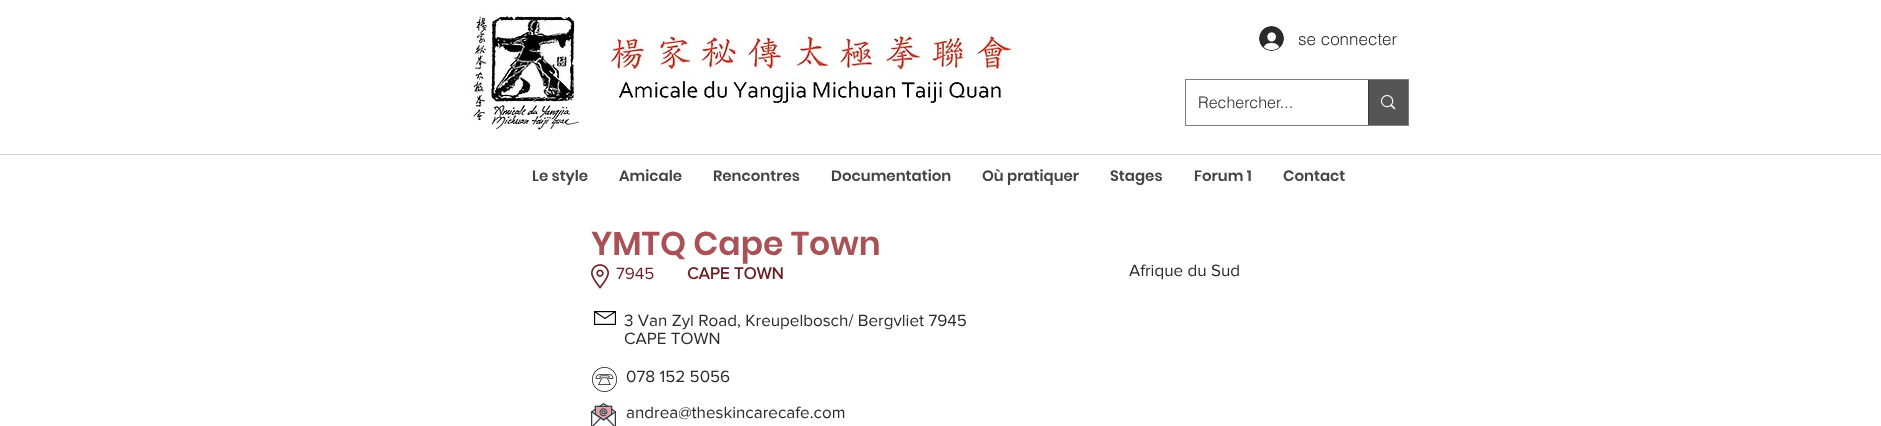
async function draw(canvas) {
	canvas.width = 1881;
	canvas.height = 426;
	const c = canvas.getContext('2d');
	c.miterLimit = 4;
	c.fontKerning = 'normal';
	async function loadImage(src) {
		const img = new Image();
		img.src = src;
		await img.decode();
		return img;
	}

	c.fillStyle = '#fff';
	c.fillRect(0, 0, 1881, 426);
	c.drawImage(await loadImage('img1.png'), 471, 14, 541, 116);
	c.drawImage(await loadImage('img2.png'), 1259, 26, 25, 25);
	c.font = '300 17px helvetica';
	c.fillStyle = '#2a2a2a';
	c.fillText('se connecter', 1298, 45);
	c.strokeStyle = '#7f7f7f';
	c.strokeRect(1185.5, 79.5, 223, 46);
	c.font = '300 16px helvetica';
	c.fillText('Rechercher...', 1198, 108);
	c.fillStyle = '#555';
	c.fillRect(1369, 80, 39, 45);
	c.fillStyle = '#3b3b3b';
	c.fillRect(1368, 80, 1, 45);
	c.drawImage(await loadImage('img3.png'), 1381, 95, 15, 15);
	c.fillStyle = '#d3d3d3';
	c.fillRect(0, 154, 1881, 1);
	c.font = '600 15px Poppins';
	c.fillStyle = '#444';
	for (const [text, x, y] of [
		['Le style', 532, 181],
		['Amicale', 619, 181],
		['Rencontres', 713, 181],
		['Documentation', 831, 181],
		['Où pratiquer', 982, 181],
		['Stages', 1110, 181],
		['Forum 1', 1194, 181],
		['Contact', 1283, 181],
	]) {
		c.fillText(text, x, y);
	}
	c.font = '600 33px Poppins';
	c.fillStyle = '#a85258';
	c.fillText('YMTQ Cape Town', 591, 255);
	c.drawImage(await loadImage('img4.png'), 591, 264, 18, 25);
	c.font = '17px "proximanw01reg"';
	c.fillStyle = '#6b1e23';
	c.fillText('7945', 616, 279);
	c.font = 'bold 17px "proximanw01reg"';
	c.fillText('CAPE TOWN', 687, 279);
	c.font = '17px "proximanw01reg"';
	c.fillStyle = '#2a2a2a';
	c.fillText('Afrique du Sud', 1129, 276);
	c.drawImage(await loadImage('img5.png'), 594, 311, 22, 14);
	c.fillText('3 Van Zyl Road, Kreupelbosch/ Bergvliet 7945', 624, 326);
	c.fillText('CAPE TOWN', 624, 344);
	c.drawImage(await loadImage('img6.png'), 592, 367, 25, 25);
	c.fillText('078 152 5056', 626, 382);
	c.drawImage(await loadImage('img7.png'), 591, 403, 25, 23);
	c.fillText('andrea@theskincarecafe.com', 626, 418);
}

draw(document.querySelector('canvas'));
